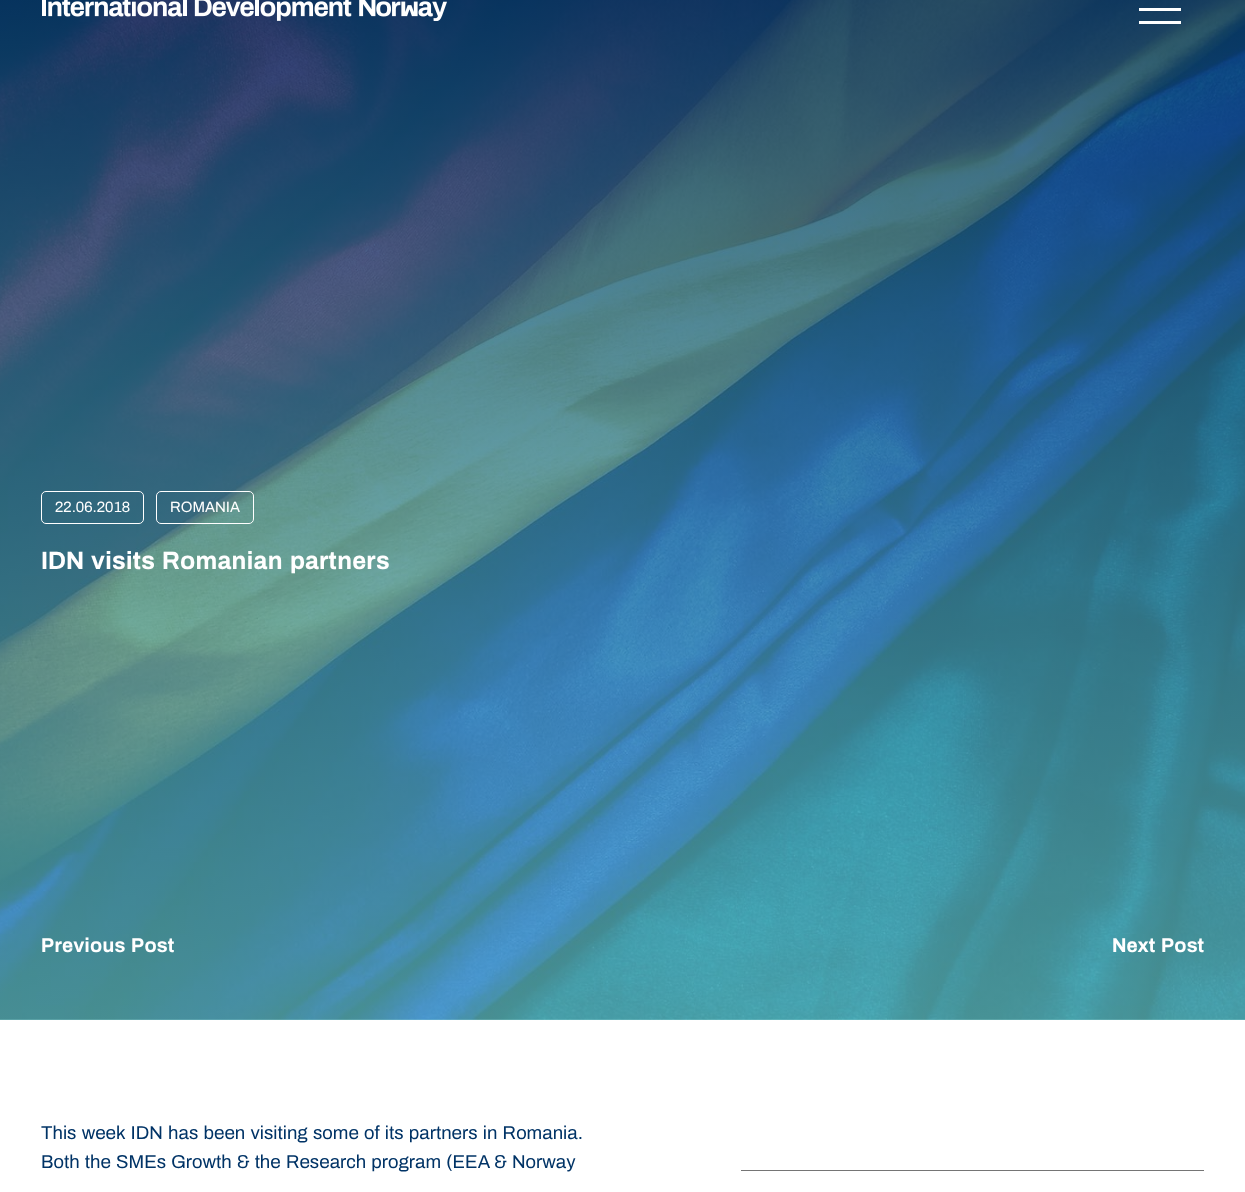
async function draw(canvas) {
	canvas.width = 1245;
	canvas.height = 1192;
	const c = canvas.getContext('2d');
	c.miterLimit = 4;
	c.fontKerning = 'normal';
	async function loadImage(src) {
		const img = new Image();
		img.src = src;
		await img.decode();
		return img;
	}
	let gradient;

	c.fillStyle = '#fff';
	c.fillRect(0, 0, 1245, 1192);
	c.drawImage(await loadImage('img2.png'), 0, 0, 1245, 1020);
	gradient = c.createLinearGradient(622, -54, 623, 1020);
	gradient.addColorStop(0, '#003366d9');
	gradient.addColorStop(1, '#66ccccad');
	c.fillStyle = gradient;
	c.fillRect(0, 0, 1245, 1020);
	c.drawImage(await loadImage('img1.png'), 42, 0, 405, 21);
	c.fillStyle = '#fff';
	c.fillRect(1139, 8, 42, 3);
	c.fillRect(1139, 21, 42, 3);
	c.beginPath();
	c.roundRect(41.5, 491.5, 102, 32, 4.5);
	c.strokeStyle = '#fff';
	c.stroke();
	c.font = '15px Archivo';
	c.fillText('22.06.2018', 55, 512);
	c.beginPath();
	c.roundRect(156.5, 491.5, 97, 32, 4.5);
	c.stroke();
	c.fillText('ROMANIA', 170, 512);
	c.font = 'bold 25px Archivo';
	c.fillText('IDN visits Romanian partners', 41, 569);
	c.font = 'bold 20px Archivo';
	c.fillText('Previous Post', 41, 952);
	c.fillText('Next Post', 1112, 952);
	c.font = '18.75px Archivo';
	c.fillStyle = '#036';
	c.fillText('This week IDN has been visiting some of its partners in Romania.', 41, 1139);
	c.fillText('Both the SMEs Growth & the Research program (EEA & Norway', 41, 1168);
	c.fillStyle = '#757575';
	c.fillRect(741, 1170, 463, 1);
}

draw(document.querySelector('canvas'));
